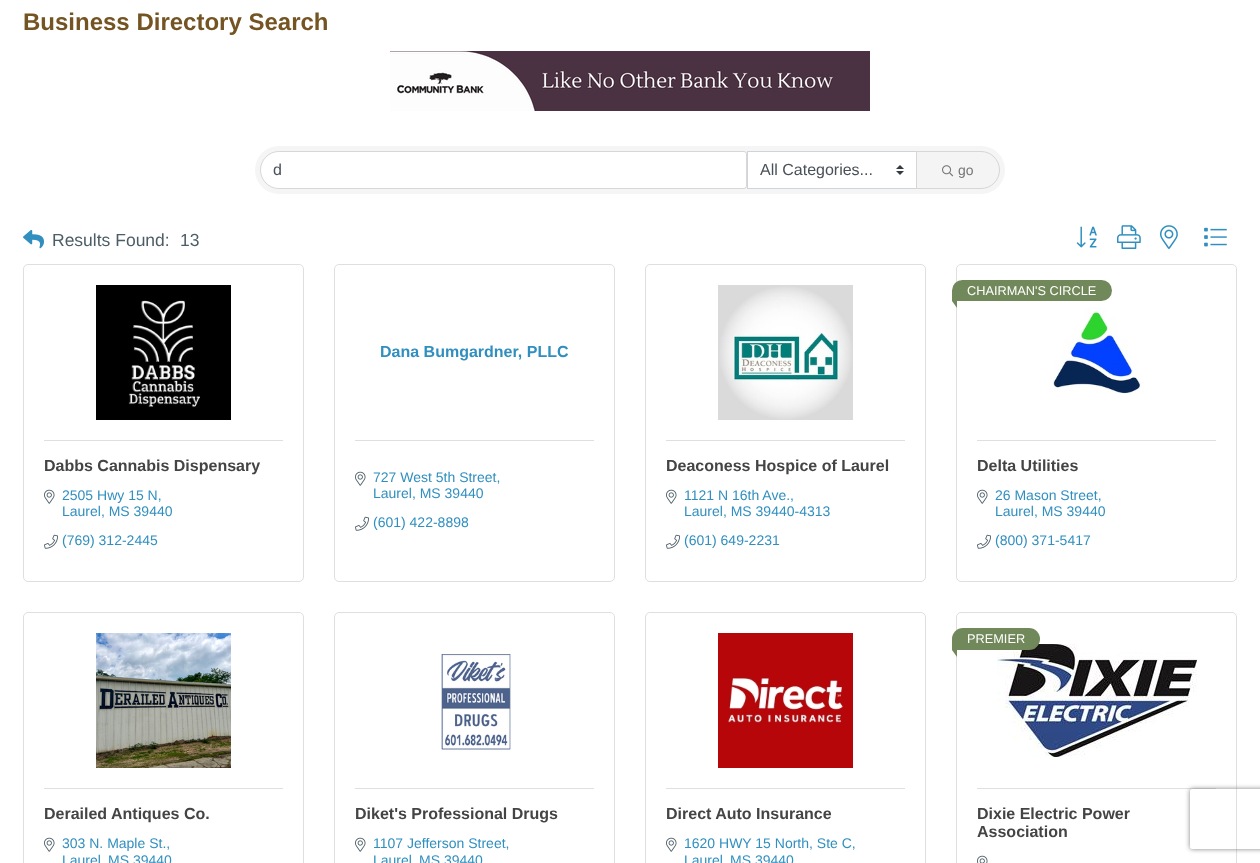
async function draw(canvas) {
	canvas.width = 1260;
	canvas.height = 863;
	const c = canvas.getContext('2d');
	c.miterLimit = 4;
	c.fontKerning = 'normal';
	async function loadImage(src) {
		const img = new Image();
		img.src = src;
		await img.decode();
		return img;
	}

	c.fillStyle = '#fff';
	c.fillRect(0, 0, 1260, 863);
	c.font = 'bold 24px Liberation Sans';
	c.fillStyle = '#745422';
	c.fillText('Business Directory Search', 23, 30);
	c.drawImage(await loadImage('img1.png'), 390, 51, 480, 60);
	c.fillStyle = '#f5f5f5';
	c.beginPath();
	c.roundRect(255, 146, 750, 48, 24);
	c.fill();
	c.fillStyle = '#fff';
	c.beginPath();
	c.roundRect(261, 152, 485, 36, [18, 2, 2, 18]);
	c.fill();
	c.beginPath();
	c.roundRect(260.5, 151.5, 486, 37, [18.5, 2.5, 2.5, 18.5]);
	c.strokeStyle = '#0000001f';
	c.stroke();
	c.font = '16px Liberation Sans';
	c.fillStyle = '#495057';
	c.fillText('d', 273, 175);
	c.fillStyle = '#fff';
	c.fillRect(748, 152, 168, 36);
	c.drawImage(await loadImage('img2.png'), 896, 165, 8, 10);
	c.strokeStyle = '#ced4da';
	c.strokeRect(747.5, 151.5, 169, 37);
	c.fillStyle = '#495057';
	c.fillText('All Categories...', 760, 175);
	c.fillStyle = '#f4f4f4';
	c.beginPath();
	c.roundRect(916.5, 151.5, 83, 37, [0, 18.5, 18.5, 0]);
	c.fill();
	c.strokeStyle = '#d6d6d6';
	c.stroke();
	c.drawImage(await loadImage('img3.png'), 942, 165, 12, 12);
	c.font = '14px Liberation Sans';
	c.fillStyle = '#777';
	c.fillText('go', 958, 175);
	c.drawImage(await loadImage('img4.png'), 23, 230, 21, 19);
	c.font = '17.5px Liberation Sans';
	c.fillStyle = '#4c5d66';
	c.fillText('Results Found:', 52, 246);
	c.fillText('13', 180, 246);
	c.drawImage(await loadImage('img5.png'), 1076, 226, 21, 22);
	c.drawImage(await loadImage('img6.png'), 1117, 225, 24, 24);
	c.drawImage(await loadImage('img7.png'), 1160, 225, 18, 24);
	c.drawImage(await loadImage('img8.png'), 1204, 227, 23, 20);
	c.beginPath();
	c.roundRect(23.5, 264.5, 280, 317, 4.5);
	c.strokeStyle = '#dfdfdf';
	c.stroke();
	c.drawImage(await loadImage('img9.png'), 96, 285, 135, 135);
	c.fillStyle = '#dfdfdf';
	c.fillRect(44, 440, 239, 1);
	c.font = 'bold 16px Liberation Sans';
	c.fillStyle = '#444';
	c.fillText('Dabbs Cannabis Dispensary', 44, 471);
	c.drawImage(await loadImage('img10.png'), 44, 489, 11, 15);
	c.font = '14px Liberation Sans';
	c.fillStyle = '#308fbf';
	c.fillText('2505 Hwy 15 N,', 62, 500);
	c.fillText('Laurel, MS 39440', 62, 516);
	c.drawImage(await loadImage('img11.png'), 44, 534, 14, 15);
	c.fillText('(769) 312-2445', 62, 545);
	c.beginPath();
	c.roundRect(334.5, 264.5, 280, 317, 4.5);
	c.stroke();
	c.font = 'bold 16px Liberation Sans';
	c.fillText('Dana Bumgardner, PLLC', 380, 357);
	c.fillStyle = '#dfdfdf';
	c.fillRect(355, 440, 239, 1);
	c.drawImage(await loadImage('img10.png'), 355, 471, 11, 15);
	c.font = '14px Liberation Sans';
	c.fillStyle = '#308fbf';
	c.fillText('727 West 5th Street,', 373, 482);
	c.fillText('Laurel, MS 39440', 373, 498);
	c.drawImage(await loadImage('img11.png'), 355, 516, 14, 15);
	c.fillText('(601) 422-8898', 373, 527);
	c.beginPath();
	c.roundRect(645.5, 264.5, 280, 317, 4.5);
	c.stroke();
	c.drawImage(await loadImage('img12.png'), 718, 285, 135, 135);
	c.fillStyle = '#dfdfdf';
	c.fillRect(666, 440, 239, 1);
	c.font = 'bold 16px Liberation Sans';
	c.fillStyle = '#444';
	c.fillText('Deaconess Hospice of Laurel', 666, 471);
	c.drawImage(await loadImage('img10.png'), 666, 489, 11, 15);
	c.font = '14px Liberation Sans';
	c.fillStyle = '#308fbf';
	c.fillText('1121 N 16th Ave.,', 684, 500);
	c.fillText('Laurel, MS 39440-4313', 684, 516);
	c.drawImage(await loadImage('img11.png'), 666, 534, 14, 15);
	c.fillText('(601) 649-2231', 684, 545);
	c.beginPath();
	c.roundRect(956.5, 264.5, 280, 317, 4.5);
	c.stroke();
	c.fillStyle = '#71885a';
	c.beginPath();
	c.roundRect(952, 280, 160, 21, [10.5, 10.5, 10.5, 0.5]);
	c.fill();
	c.font = '12.75px Liberation Sans';
	c.fillStyle = '#fff';
	c.fillText('CHAIRMAN\'S CIRCLE', 967, 295);
	c.fillStyle = '#71885a';
	c.beginPath();
	c.moveTo(957, 294);
	c.lineTo(957, 308);
	c.lineTo(952, 301);
	c.closePath();
	c.fill();
	c.drawImage(await loadImage('img13.png'), 1053, 307, 91, 87);
	c.fillStyle = '#dfdfdf';
	c.fillRect(977, 440, 239, 1);
	c.font = 'bold 16px Liberation Sans';
	c.fillStyle = '#444';
	c.fillText('Delta Utilities', 977, 471);
	c.drawImage(await loadImage('img10.png'), 977, 489, 11, 15);
	c.font = '14px Liberation Sans';
	c.fillStyle = '#308fbf';
	c.fillText('26 Mason Street,', 995, 500);
	c.fillText('Laurel, MS 39440', 995, 516);
	c.drawImage(await loadImage('img11.png'), 977, 534, 14, 15);
	c.fillText('(800) 371-5417', 995, 545);
	c.beginPath();
	c.roundRect(23.5, 612.5, 280, 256, 4.5);
	c.stroke();
	c.drawImage(await loadImage('img14.png'), 96, 633, 135, 135);
	c.fillStyle = '#dfdfdf';
	c.fillRect(44, 788, 239, 1);
	c.font = 'bold 16px Liberation Sans';
	c.fillStyle = '#444';
	c.fillText('Derailed Antiques Co.', 44, 819);
	c.drawImage(await loadImage('img10.png'), 44, 837, 11, 15);
	c.font = '14px Liberation Sans';
	c.fillStyle = '#308fbf';
	for (const [text, x, y] of [
		['303 N. Maple St.,', 62, 848],
		['Laurel', 62, 865],
		['MS 39440', 108, 865],
	]) {
		c.fillText(text, x, y);
	}
	c.beginPath();
	c.roundRect(334.5, 612.5, 280, 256, 4.5);
	c.stroke();
	c.drawImage(await loadImage('img15.png'), 441, 654, 70, 96);
	c.fillStyle = '#dfdfdf';
	c.fillRect(355, 788, 239, 1);
	c.font = 'bold 16px Liberation Sans';
	c.fillStyle = '#444';
	c.fillText('Diket\'s Professional Drugs', 355, 819);
	c.drawImage(await loadImage('img10.png'), 355, 837, 11, 15);
	c.font = '14px Liberation Sans';
	c.fillStyle = '#308fbf';
	for (const [text, x, y] of [
		['1107 Jefferson Street,', 373, 848],
		['Laurel', 373, 865],
		['MS 39440', 419, 865],
	]) {
		c.fillText(text, x, y);
	}
	c.beginPath();
	c.roundRect(645.5, 612.5, 280, 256, 4.5);
	c.stroke();
	c.drawImage(await loadImage('img16.png'), 718, 633, 135, 135);
	c.fillStyle = '#dfdfdf';
	c.fillRect(666, 788, 239, 1);
	c.font = 'bold 16px Liberation Sans';
	c.fillStyle = '#444';
	c.fillText('Direct Auto Insurance', 666, 819);
	c.drawImage(await loadImage('img10.png'), 666, 837, 11, 15);
	c.font = '14px Liberation Sans';
	c.fillStyle = '#308fbf';
	for (const [text, x, y] of [
		['1620 HWY 15 North, Ste C,', 684, 848],
		['Laurel', 684, 865],
		['MS 39440', 730, 865],
	]) {
		c.fillText(text, x, y);
	}
	c.beginPath();
	c.roundRect(956.5, 612.5, 280, 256, 4.5);
	c.stroke();
	c.drawImage(await loadImage('img17.png'), 997, 644, 200, 113);
	c.fillStyle = '#71885a';
	c.beginPath();
	c.roundRect(952, 628, 88, 22, [11, 11, 11, 0.5]);
	c.fill();
	c.font = '12.75px Liberation Sans';
	c.fillStyle = '#fff';
	c.fillText('PREMIER', 967, 643);
	c.fillStyle = '#71885a';
	c.beginPath();
	c.moveTo(957, 643);
	c.lineTo(957, 657);
	c.lineTo(952, 650);
	c.closePath();
	c.fill();
	c.fillStyle = '#dfdfdf';
	c.fillRect(977, 788, 239, 1);
	c.font = 'bold 16px Liberation Sans';
	c.fillStyle = '#444';
	c.fillText('Dixie Electric Power', 977, 819);
	c.fillText('Association', 977, 837);
	c.drawImage(await loadImage('img18.png'), 977, 855, 11, 8);
	c.save();
	c.beginPath();
	c.moveTo(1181, 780);
	c.lineTo(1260, 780);
	c.lineTo(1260, 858);
	c.lineTo(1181, 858);
	c.closePath();
	c.moveTo(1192, 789);
	c.lineTo(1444, 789);
	c.bezierCurveTo(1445, 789, 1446, 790, 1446, 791);
	c.lineTo(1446, 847);
	c.bezierCurveTo(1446, 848, 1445, 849, 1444, 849);
	c.lineTo(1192, 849);
	c.bezierCurveTo(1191, 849, 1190, 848, 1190, 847);
	c.lineTo(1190, 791);
	c.bezierCurveTo(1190, 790, 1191, 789, 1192, 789);
	c.closePath();
	c.clip('evenodd');
	c.fillStyle = '#808080';
	c.filter = 'blur(2.5px)';
	c.beginPath();
	c.roundRect(1190, 789, 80, 60, 2);
	c.fill();
	c.filter = 'none';
	c.restore();
}

draw(document.querySelector('canvas'));
